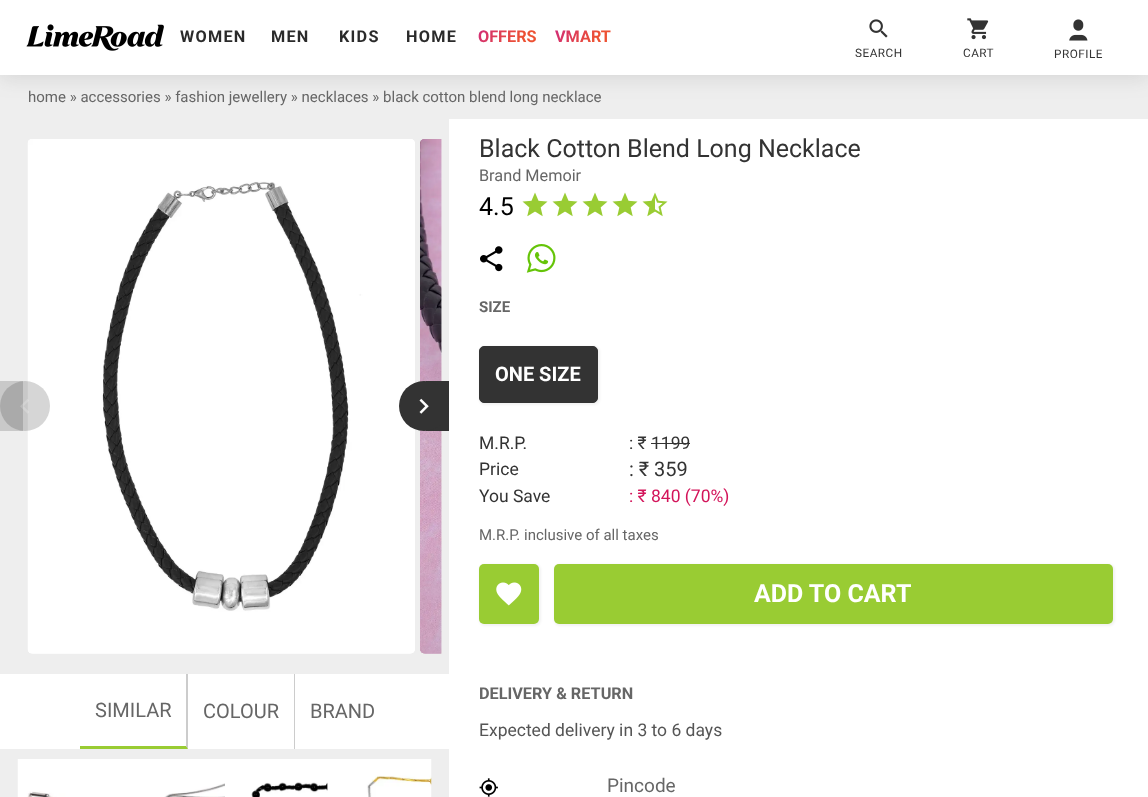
async function draw(canvas) {
	canvas.width = 1148;
	canvas.height = 797;
	const c = canvas.getContext('2d');
	c.miterLimit = 4;
	c.fontKerning = 'normal';
	async function loadImage(src) {
		const img = new Image();
		img.src = src;
		await img.decode();
		return img;
	}
	let gradient;

	c.fillStyle = '#eee';
	c.fillRect(0, 0, 1148, 797);
	c.fillStyle = '#55555529';
	c.filter = 'blur(10px)';
	c.beginPath();
	c.rect(0, 3, 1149, 75);
	c.fill();
	c.filter = 'none';
	c.fillStyle = '#fff';
	c.fillRect(0, 0, 1148, 75);
	c.drawImage(await loadImage('img1.png'), 26, 24, 138, 27);
	c.letterSpacing = '1.25px';
	c.font = 'bold 16.25px Roboto';
	c.fillStyle = '#2a2a2a';
	for (const [text, x, y] of [
		['WOMEN', 180, 42],
		['MEN', 271, 42],
		['KIDS', 339, 42],
		['HOME', 406, 42],
	]) {
		c.fillText(text, x, y);
	}
	c.letterSpacing = '0px';
	gradient = c.createLinearGradient(480, 19, 532, 53);
	gradient.addColorStop(0, '#ce297e');
	gradient.addColorStop(0.73, '#ed5133');
	c.fillStyle = gradient;
	c.fillText('OFFERS', 478, 42);
	gradient = c.createLinearGradient(556, 20, 607, 52);
	gradient.addColorStop(0, '#ce297e');
	gradient.addColorStop(0.73, '#ed5133');
	c.fillStyle = gradient;
	c.fillText('VMART', 555, 42);
	c.drawImage(await loadImage('img2.png'), 869, 19, 19, 19);
	c.letterSpacing = '0.5px';
	c.font = '11.75px Roboto';
	c.fillStyle = '#333';
	c.fillText('SEARCH', 855, 57);
	c.drawImage(await loadImage('img3.png'), 967, 18, 22, 22);
	c.fillText('CART', 963, 57);
	c.drawImage(await loadImage('img4.png'), 1069, 19, 19, 22);
	c.fillText('PROFILE', 1054, 58);
	c.letterSpacing = '0px';
	c.font = '15px Roboto';
	c.fillStyle = '#666';
	c.fillText('home » accessories » fashion jewellery » necklaces » black cotton blend long necklace', 28, 102);
	c.fillStyle = '#c9c9c9';
	c.fillRect(0, 381, 23, 50);
	c.drawImage(await loadImage('img6.png'), 27, 139, 388, 515);
	c.drawImage(await loadImage('img7.png'), 28, 139, 387, 515);
	c.fillStyle = '#33333333';
	c.beginPath();
	c.arc(25, 406, 25, 0, 2 * Math.PI);
	c.fill();
	c.drawImage(await loadImage('img5.png'), 20, 399, 9, 15);
	c.drawImage(await loadImage('img8.png'), 420, 139, 22, 515);
	c.drawImage(await loadImage('img9.png'), 420, 139, 22, 515);
	c.fillStyle = '#333';
	c.fillRect(426, 381, 23, 50);
	c.beginPath();
	c.arc(424, 406, 25, 0, 2 * Math.PI);
	c.fill();
	c.drawImage(await loadImage('img10.png'), 419, 398, 10, 16);
	c.fillStyle = '#fff';
	c.fillRect(0, 674, 449, 75);
	c.fillStyle = '#ccc';
	c.beginPath();
	c.moveTo(188, 674);
	c.lineTo(188, 749);
	c.lineTo(186, 746);
	c.lineTo(186, 674);
	c.closePath();
	c.fill();
	c.fillStyle = '#9c3';
	c.beginPath();
	c.moveTo(188, 749);
	c.lineTo(80, 749);
	c.lineTo(80, 746);
	c.lineTo(186, 746);
	c.closePath();
	c.fill();
	c.font = '20px Roboto';
	c.fillStyle = '#666';
	c.fillText('SIMILAR', 95, 717);
	c.fillStyle = '#ccc';
	c.fillRect(294, 674, 1, 75);
	c.fillStyle = '#666';
	c.fillText('COLOUR', 203, 718);
	c.fillText('BRAND', 310, 718);
	c.drawImage(await loadImage('img11.png'), 17, 759, 104, 38);
	c.fillStyle = '#fff';
	c.fillRect(121, 759, 207, 38);
	c.drawImage(await loadImage('img12.png'), 164, 783, 61, 14);
	c.drawImage(await loadImage('img14.png'), 251, 782, 77, 15);
	c.drawImage(await loadImage('img13.png'), 327, 759, 105, 38);
	c.fillRect(449, 119, 699, 678);
	c.font = '25px Roboto';
	c.fillStyle = '#333';
	c.fillText('Black Cotton Blend Long Necklace', 479, 157);
	c.font = '16.25px Roboto';
	c.fillStyle = '#666';
	c.fillText('Brand Memoir', 479, 181);
	c.font = '25px Roboto';
	c.fillStyle = '#000';
	c.fillText('4.5', 479, 215);
	c.drawImage(await loadImage('img15.png'), 522, 192, 26, 25);
	c.drawImage(await loadImage('img15.png'), 552, 192, 26, 25);
	c.drawImage(await loadImage('img15.png'), 582, 192, 26, 25);
	c.drawImage(await loadImage('img15.png'), 612, 192, 26, 25);
	c.drawImage(await loadImage('img16.png'), 642, 192, 26, 25);
	c.drawImage(await loadImage('img17.png'), 480, 246, 23, 26);
	c.drawImage(await loadImage('img18.png'), 526, 244, 30, 29);
	c.font = 'bold 15px Roboto';
	c.fillStyle = '#666';
	c.fillText('SIZE', 479, 312);
	c.fillStyle = '#0000000d';
	c.filter = 'blur(1px)';
	c.beginPath();
	c.roundRect(479, 346, 121, 59, 6);
	c.fill();
	c.filter = 'none';
	c.fillStyle = '#333';
	c.beginPath();
	c.roundRect(479.5, 346.5, 118, 56, 4.5);
	c.fill();
	c.strokeStyle = '#333';
	c.stroke();
	c.font = 'bold 20px Roboto';
	c.fillStyle = '#fff';
	c.fillText('ONE SIZE', 495, 381);
	c.font = '17.5px Roboto';
	c.fillStyle = '#333';
	c.fillText('M.R.P.', 479, 449);
	c.fillText(': ₹ 1199', 629, 449);
	c.fillRect(651, 443, 39, 1);
	c.fillText('Price', 479, 475);
	c.font = '20px Roboto';
	c.fillText(': ₹ 359', 629, 476);
	c.font = '17.5px Roboto';
	c.fillText('You Save', 479, 502);
	c.fillStyle = '#d3145a';
	c.fillText(': ₹ 840 (70%)', 629, 502);
	c.font = '15px Roboto';
	c.fillStyle = '#666';
	c.fillText('M.R.P. inclusive of all taxes', 479, 540);
	c.fillStyle = '#0000000d';
	c.filter = 'blur(1px)';
	c.beginPath();
	c.roundRect(479, 564, 62, 62, 6);
	c.fill();
	c.filter = 'none';
	c.fillStyle = '#9c3';
	c.beginPath();
	c.roundRect(479, 564, 60, 60, 5);
	c.fill();
	c.drawImage(await loadImage('img19.png'), 496, 582, 26, 24);
	c.fillStyle = '#0000000d';
	c.filter = 'blur(1px)';
	c.beginPath();
	c.roundRect(554, 564, 561, 62, 6);
	c.fill();
	c.filter = 'none';
	c.fillStyle = '#9c3';
	c.beginPath();
	c.roundRect(554, 564, 559, 60, 5);
	c.fill();
	c.font = 'bold 25px Roboto';
	c.fillStyle = '#fff';
	c.fillText('ADD TO CART', 754, 602);
	c.font = 'bold 16.25px Roboto';
	c.fillStyle = '#666';
	c.fillText('DELIVERY & RETURN', 479, 699);
	c.font = '17.5px Roboto';
	c.fillStyle = '#555';
	c.fillText('Expected delivery in 3 to 6 days', 479, 736);
	c.drawImage(await loadImage('img20.png'), 479, 778, 19, 19);
	c.font = '19px Roboto';
	c.fillStyle = '#666';
	c.fillText('Pincode', 607, 792);
}

draw(document.querySelector('canvas'));
